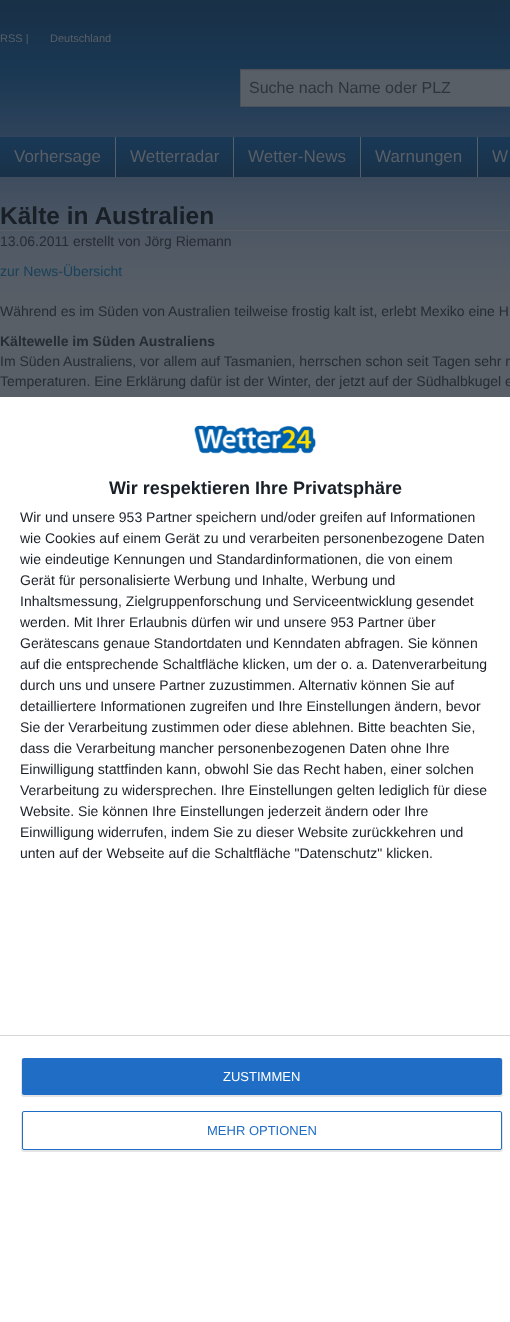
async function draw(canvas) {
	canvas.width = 510;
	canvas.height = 1322;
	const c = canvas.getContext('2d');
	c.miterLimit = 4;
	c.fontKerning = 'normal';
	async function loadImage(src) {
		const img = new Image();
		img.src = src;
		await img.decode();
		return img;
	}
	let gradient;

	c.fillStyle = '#595f67';
	c.fillRect(0, 0, 510, 1322);
	c.drawImage(await loadImage('img1.png'), 0, 0, 510, 299);
	c.font = '11px Liberation Sans';
	c.fillText('RSS |', 0, 42);
	c.fillText('Deutschland', 50, 42);
	c.fillRect(241, 71, 269, 35);
	c.fillStyle = '#545a62';
	c.fillRect(241, 70, 269, 1);
	c.strokeStyle = '#4c525a';
	c.strokeRect(240.5, 69.5, 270, 37);
	c.font = '16px Liberation Sans';
	c.fillStyle = '#2e343c';
	c.fillText('Suche nach Name oder PLZ', 249, 93);
	gradient = c.createLinearGradient(480, 137, 480, 177);
	gradient.addColorStop(0, '#193957');
	gradient.addColorStop(1, '#193148');
	c.fillStyle = gradient;
	c.fillRect(0, 137, 510, 40);
	c.fillStyle = '#595f67';
	c.fillRect(115, 137, 1, 40);
	c.font = '17px Liberation Sans';
	c.fillText('Vorhersage', 14, 162);
	c.fillRect(233, 137, 1, 40);
	c.fillText('Wetterradar', 130, 162);
	c.fillRect(360, 137, 1, 40);
	c.fillText('Wetter-News', 248, 162);
	c.fillRect(477, 137, 1, 40);
	c.fillText('Warnungen', 375, 162);
	c.fillText('W', 492, 162);
	c.fillRect(0, 230, 510, 1);
	c.font = 'bold 24.5px Liberation Sans';
	c.fillStyle = '#191f27';
	c.fillText('Kälte in Australien', 0, 224);
	c.font = '14px Liberation Sans';
	c.fillStyle = '#262c34';
	c.fillText('13.06.2011 erstellt von Jörg Riemann', 0, 246);
	c.fillStyle = '#19415a';
	c.fillText('zur News-Übersicht', 0, 276);
	c.fillStyle = '#262c34';
	c.fillText('Während es im Süden von Australien teilweise frostig kalt ist, erlebt Mexiko eine H', 0, 316);
	c.font = 'bold 14px Liberation Sans';
	c.fillText('Kältewelle im Süden Australiens', 0, 346);
	c.font = '14px Liberation Sans';
	c.fillText('Im Süden Australiens, vor allem auf Tasmanien, herrschen schon seit Tagen sehr n', 0, 366);
	c.fillText('Temperaturen. Eine Erklärung dafür ist der Winter, der jetzt auf der Südhalbkugel e', 0, 386);
	c.fillStyle = '#fff';
	c.fillRect(0, 397, 510, 925);
	c.drawImage(await loadImage('img2.png'), 194, 425, 122, 29);
	c.font = 'bold 18px Liberation Sans';
	c.fillStyle = '#191f27';
	c.fillText('Wir respektieren Ihre Privatsphäre', 109, 494);
	c.font = '14px Liberation Sans';
	for (const [text, x, y] of [
		['Wir und unsere 953 Partner speichern und/oder greifen auf Informationen', 20, 522],
		['wie Cookies auf einem Gerät zu und verarbeiten personenbezogene Daten', 20, 543],
		['wie eindeutige Kennungen und Standardinformationen, die von einem', 20, 564],
		['Gerät für personalisierte Werbung und Inhalte, Werbung und', 20, 585],
		['Inhaltsmessung, Zielgruppenforschung und Serviceentwicklung gesendet', 20, 606],
		['werden. Mit Ihrer Erlaubnis dürfen wir und unsere 953 Partner über', 20, 627],
		['Gerätescans genaue Standortdaten und Kenndaten abfragen. Sie können', 20, 648],
		['auf die entsprechende Schaltfläche klicken, um der o. a. Datenverarbeitung', 20, 669],
		['durch uns und unsere Partner zuzustimmen. Alternativ können Sie auf', 20, 690],
		['detailliertere Informationen zugreifen und Ihre Einstellungen ändern, bevor', 20, 711],
		['Sie der Verarbeitung zustimmen oder diese ablehnen. Bitte beachten Sie,', 20, 732],
		['dass die Verarbeitung mancher personenbezogenen Daten ohne Ihre', 20, 753],
		['Einwilligung stattfinden kann, obwohl Sie das Recht haben, einer solchen', 20, 774],
		['Verarbeitung zu widersprechen. Ihre Einstellungen gelten lediglich für diese', 20, 795],
		['Website. Sie können Ihre Einstellungen jederzeit ändern oder Ihre', 20, 816],
		['Einwilligung widerrufen, indem Sie zu dieser Website zurückkehren und', 20, 837],
		['unten auf der Webseite auf die Schaltfläche "Datenschutz" klicken.', 20, 858],
	]) {
		c.fillText(text, x, y);
	}
	c.fillStyle = '#d8d8d8';
	c.fillRect(0, 1035, 510, 1);
	c.fillStyle = '#0000001a';
	c.filter = 'blur(0.5px)';
	c.beginPath();
	c.roundRect(21, 1058, 482, 39, 3);
	c.fill();
	c.filter = 'none';
	c.fillStyle = '#206dc5';
	c.beginPath();
	c.roundRect(22, 1058, 480, 37, 2);
	c.fill();
	c.font = '13px Liberation Sans';
	c.fillStyle = '#fff';
	c.fillText('ZUSTIMMEN', 223, 1081);
	c.fillStyle = '#0000001a';
	c.filter = 'blur(0.5px)';
	c.beginPath();
	c.roundRect(21, 1111, 482, 41, 3);
	c.fill();
	c.filter = 'none';
	c.fillStyle = '#fff';
	c.beginPath();
	c.roundRect(22.5, 1111.5, 479, 38, 1.5);
	c.fill();
	c.strokeStyle = '#206dc5';
	c.stroke();
	c.fillStyle = '#206dc5';
	c.fillText('MEHR OPTIONEN', 207, 1135);
}

draw(document.querySelector('canvas'));
